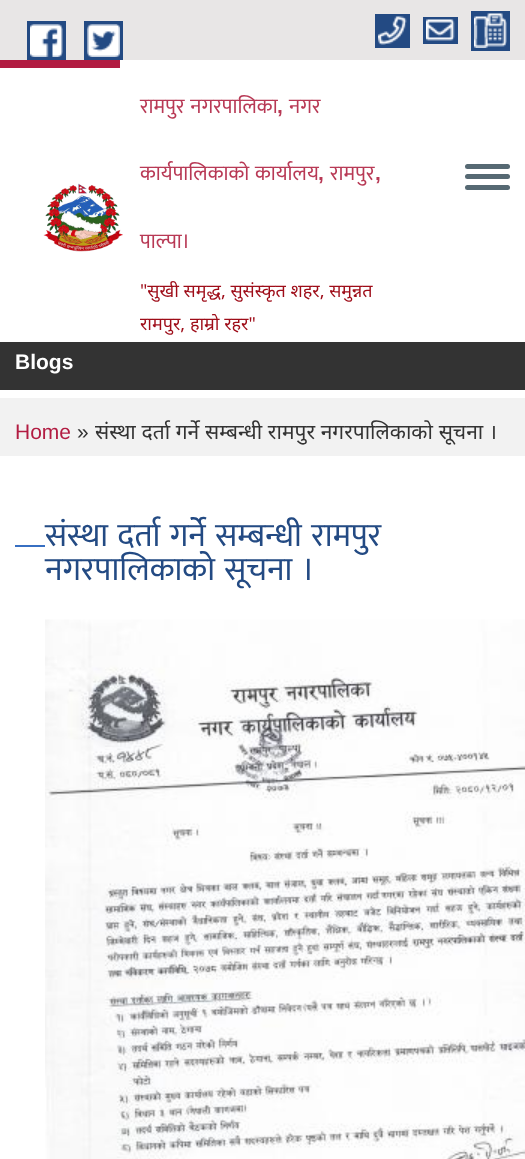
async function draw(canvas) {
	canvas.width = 525;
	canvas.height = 1159;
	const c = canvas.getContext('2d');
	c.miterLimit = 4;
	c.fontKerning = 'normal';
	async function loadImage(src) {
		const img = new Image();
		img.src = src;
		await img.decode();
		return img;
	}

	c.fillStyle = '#fff';
	c.fillRect(0, 0, 525, 1159);
	for (const [x, y, w, h, color] of [
		[0, 0, 525, 60, '#e8e6e6'],
		[27, 21, 39, 39, '#234a83'],
		[84, 21, 39, 39, '#234a83'],
	]) {
		c.fillStyle = color;
		c.fillRect(x, y, w, h);
	}
	c.drawImage(await loadImage('img1.png'), 30, 24, 33, 33);
	c.drawImage(await loadImage('img2.png'), 87, 24, 33, 33);
	c.fillRect(471, 11, 39, 40);
	c.fillRect(375, 14, 35, 34);
	c.drawImage(await loadImage('img3.png'), 474, 13, 33, 35);
	c.drawImage(await loadImage('img4.png'), 378, 16, 29, 29);
	c.fillRect(423, 17, 35, 27);
	c.drawImage(await loadImage('img5.png'), 426, 19, 29, 22);
	c.fillStyle = '#b21c42';
	c.fillRect(0, 60, 120, 8);
	c.drawImage(await loadImage('img6.png'), 43, 183, 80, 69);
	c.wordSpacing = '1px';
	c.font = '21px Mukta';
	c.fillStyle = '#b83955';
	c.fillText('रामपुर नगरपालिका', 140, 113);
	c.wordSpacing = '0px';
	c.font = 'bold 21px Liberation Sans';
	c.fillText(',', 277, 113);
	c.font = '21px Mukta';
	c.fillText('नगर', 289, 113);
	c.wordSpacing = '1px';
	c.fillText('कार्यपालिकाको कार्यालय', 140, 180);
	c.wordSpacing = '0px';
	c.font = 'bold 21px Liberation Sans';
	c.fillText(',', 318, 180);
	c.font = '21px Mukta';
	c.fillText('रामपुर', 330, 180);
	c.font = 'bold 21px Liberation Sans';
	c.fillText(',', 375, 180);
	c.font = '21px Mukta';
	c.fillText('पाल्पा।', 140, 248);
	c.font = '18px Noto Sans';
	c.fillStyle = '#9e0c18';
	c.fillText('"सुखी समृद्ध, सुसंस्कृत शहर, समुन्नत', 140, 297);
	c.fillText('रामपुर, हाम्रो रहर"', 140, 330);
	c.fillStyle = '#566973';
	c.beginPath();
	c.roundRect(465, 164, 45, 5, 2.5);
	c.fill();
	c.beginPath();
	c.roundRect(465, 174, 45, 5, 2.5);
	c.fill();
	c.beginPath();
	c.roundRect(465, 185, 45, 5, 2.5);
	c.fill();
	c.fillStyle = '#333';
	c.fillRect(0, 342, 525, 48);
	c.font = 'bold 21px Liberation Sans';
	c.fillStyle = '#fff';
	c.fillText('Blogs', 15, 369);
	c.fillStyle = '#f2f2f2';
	c.fillRect(0, 398, 525, 58);
	c.font = '21px Liberation Sans';
	c.fillStyle = '#b21c42';
	c.fillText('Home', 15, 439);
	c.fillStyle = '#333';
	c.fillText('»', 77, 439);
	c.wordSpacing = '0.25px';
	c.font = '21px Noto Sans';
	c.fillText('संस्था दर्ता गर्ने सम्बन्धी रामपुर नगरपालिकाको सूचना ।', 95, 439);
	c.fillStyle = '#376fc2';
	c.fillRect(15, 545, 30, 2);
	c.wordSpacing = '2px';
	c.font = '33px Mukta';
	c.fillStyle = '#234a83';
	c.fillText('संस्था दर्ता गर्ने सम्बन्धी रामपुर', 45, 546);
	c.fillText('नगरपालिकाको सूचना ।', 45, 580);
	c.drawImage(await loadImage('img7.png'), 45, 619, 480, 540);
}

draw(document.querySelector('canvas'));
